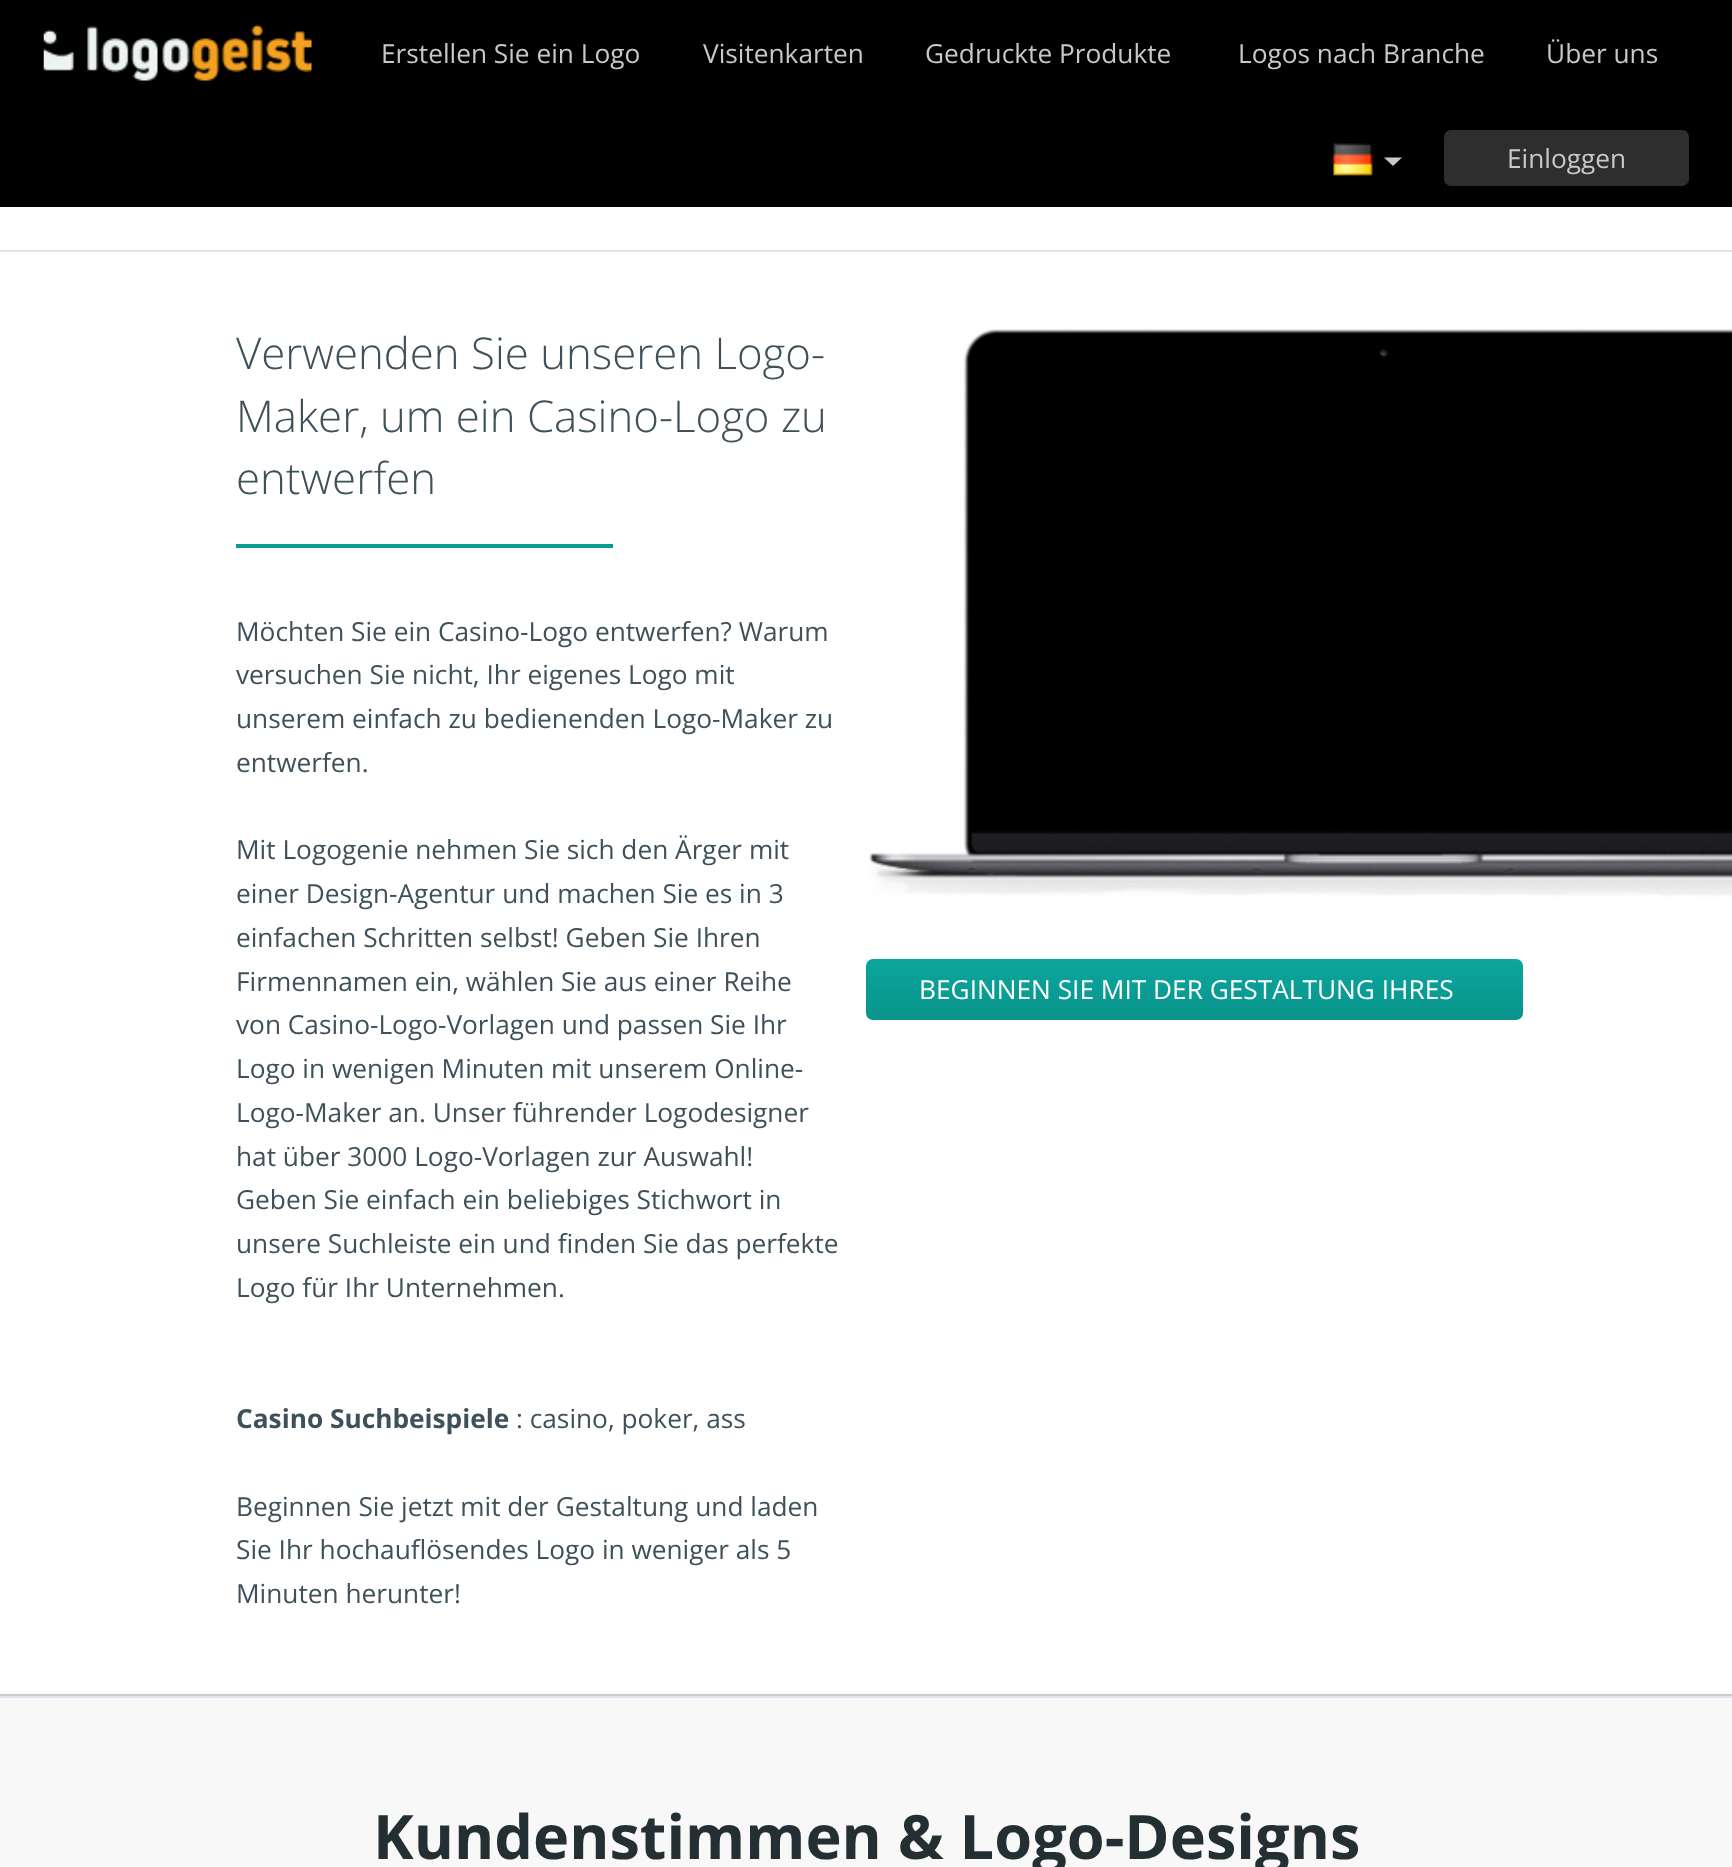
async function draw(canvas) {
	canvas.width = 1732;
	canvas.height = 1867;
	const c = canvas.getContext('2d');
	c.miterLimit = 4;
	c.fontKerning = 'normal';
	async function loadImage(src) {
		const img = new Image();
		img.src = src;
		await img.decode();
		return img;
	}
	let gradient;

	c.fillStyle = '#fff';
	c.fillRect(0, 0, 1732, 1867);
	c.fillStyle = '#000';
	c.fillRect(0, 0, 1732, 207);
	c.drawImage(await loadImage('img1.png'), 43, 24, 269, 57);
	c.font = '26.25px Open Sans';
	c.fillStyle = '#c7c9c9';
	for (const [text, x, y] of [
		['Erstellen Sie ein Logo', 381, 63],
		['Visitenkarten', 703, 63],
		['Gedruckte Produkte', 925, 63],
		['Logos nach Branche', 1238, 63],
		['Über uns', 1546, 63],
	]) {
		c.fillText(text, x, y);
	}
	c.drawImage(await loadImage('img2.png'), 1333, 143, 40, 33);
	c.beginPath();
	c.moveTo(1384, 157.5);
	c.lineTo(1402, 157.5);
	c.lineTo(1393, 166);
	c.closePath();
	c.fill();
	c.fillStyle = '#2e2e2e';
	c.beginPath();
	c.roundRect(1444, 130, 245, 56, 7);
	c.fill();
	c.fillStyle = '#c7c9c9';
	c.fillText('Einloggen', 1507, 168);
	c.fillStyle = '#e2e3ef';
	c.fillRect(0, 250, 1732, 2);
	c.fillStyle = '#cdcdcd';
	c.fillRect(0, 1694, 1732, 2);
	c.font = '300 43.75px Open Sans';
	c.fillStyle = '#3e5059';
	for (const [text, x, y] of [
		['Verwenden Sie unseren Logo-', 236, 369],
		['Maker, um ein Casino-Logo zu', 236, 432],
		['entwerfen', 236, 494],
	]) {
		c.fillText(text, x, y);
	}
	c.fillStyle = '#0a9c93';
	c.fillRect(236, 544, 377, 4);
	c.font = '26.25px Open Sans';
	c.fillStyle = '#3e5059';
	for (const [text, x, y] of [
		['Möchten Sie ein Casino-Logo entwerfen? Warum', 236, 641],
		['versuchen Sie nicht, Ihr eigenes Logo mit', 236, 684],
		['unserem einfach zu bedienenden Logo-Maker zu', 236, 728],
		['entwerfen.', 236, 772],
		['Mit Logogenie nehmen Sie sich den Ärger mit', 236, 859],
		['einer Design-Agentur und machen Sie es in 3', 236, 903],
		['einfachen Schritten selbst! Geben Sie Ihren', 236, 947],
		['Firmennamen ein, wählen Sie aus einer Reihe', 236, 991],
		['von Casino-Logo-Vorlagen und passen Sie Ihr', 236, 1034],
		['Logo in wenigen Minuten mit unserem Online-', 236, 1078],
		['Logo-Maker an. Unser führender Logodesigner', 236, 1122],
		['hat über 3000 Logo-Vorlagen zur Auswahl!', 236, 1166],
		['Geben Sie einfach ein beliebiges Stichwort in', 236, 1209],
		['unsere Suchleiste ein und finden Sie das perfekte', 236, 1253],
		['Logo für Ihr Unternehmen.', 236, 1297],
	]) {
		c.fillText(text, x, y);
	}
	c.font = 'bold 26.25px Open Sans';
	c.fillText('Casino Suchbeispiele', 236, 1428);
	c.font = '26.25px Open Sans';
	for (const [text, x, y] of [
		[': casino, poker, ass', 516, 1428],
		['Beginnen Sie jetzt mit der Gestaltung und laden', 236, 1516],
		['Sie Ihr hochauflösendes Logo in weniger als 5', 236, 1559],
		['Minuten herunter!', 236, 1603],
	]) {
		c.fillText(text, x, y);
	}
	c.drawImage(await loadImage('img3.png'), 869, 329, 863, 568);
	gradient = c.createLinearGradient(1194, 959, 1194, 1020);
	gradient.addColorStop(0, '#0ba69d');
	gradient.addColorStop(1, '#0a948c');
	c.fillStyle = gradient;
	c.beginPath();
	c.roundRect(866, 959, 657, 61, 7);
	c.fill();
	c.fillStyle = '#fff';
	c.fillText('BEGINNEN SIE MIT DER GESTALTUNG IHRES', 919, 999);
	c.fillStyle = '#f8f8f8';
	c.fillRect(0, 1698, 1732, 169);
	c.fillStyle = '#e2e3ef';
	c.fillRect(0, 1696, 1732, 2);
	c.font = 'bold 61.25px Open Sans';
	c.fillStyle = '#242f33';
	c.fillText('Kundenstimmen & Logo-Designs', 373, 1859);
}

draw(document.querySelector('canvas'));
